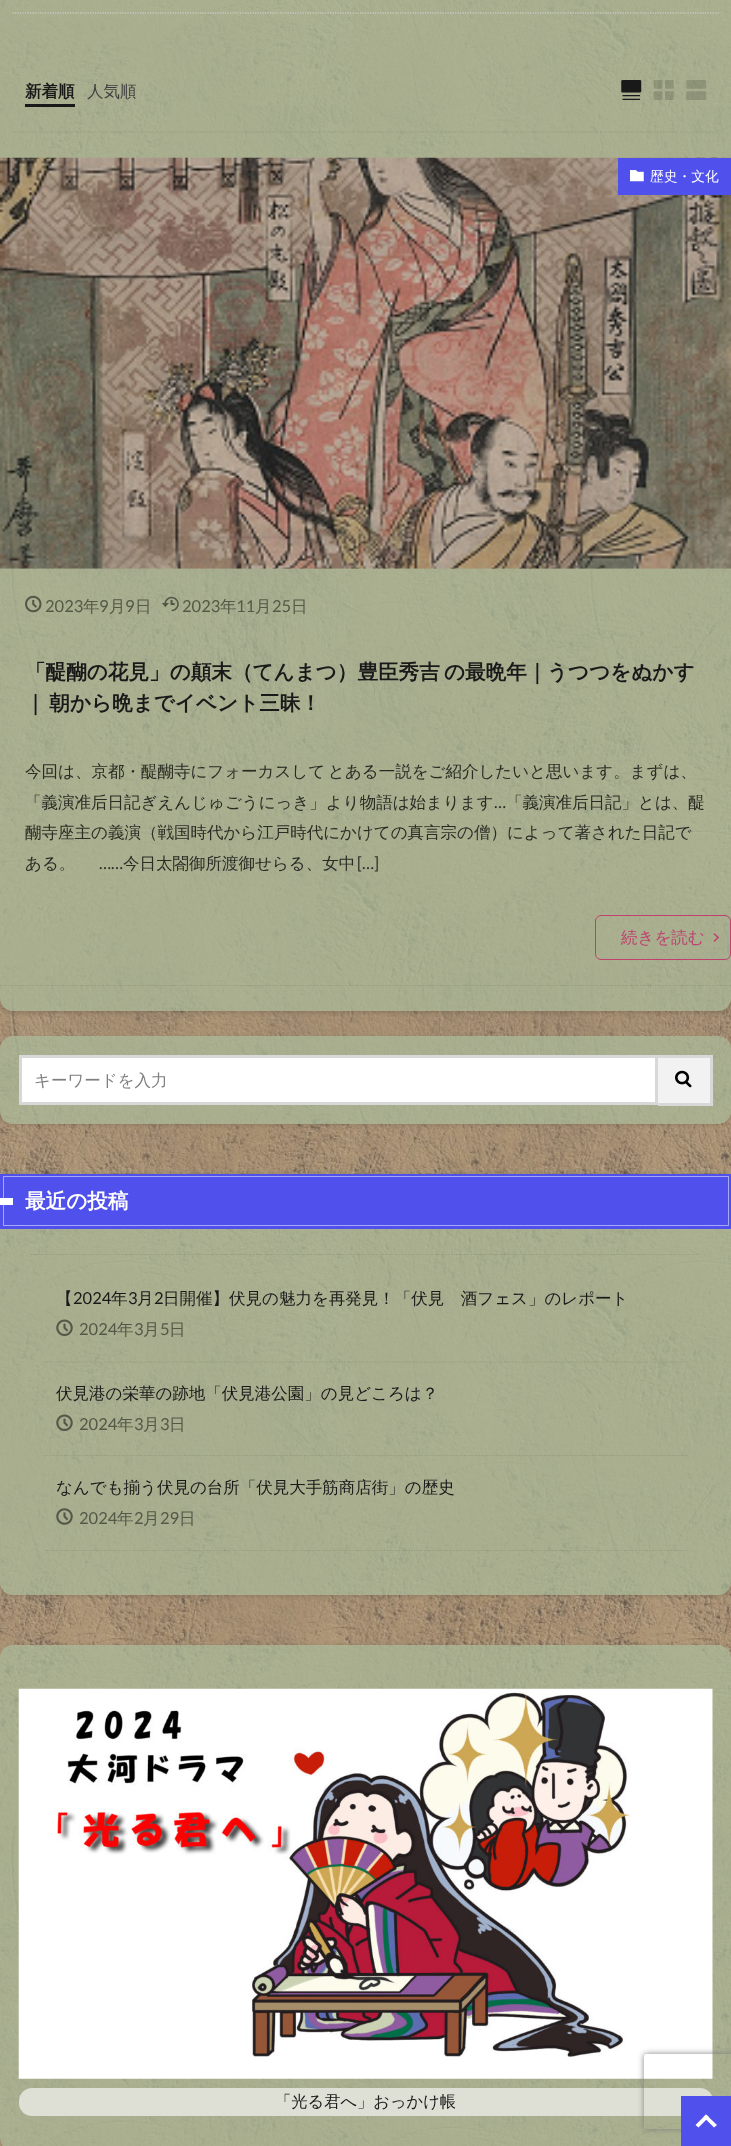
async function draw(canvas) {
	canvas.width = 731;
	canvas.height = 2146;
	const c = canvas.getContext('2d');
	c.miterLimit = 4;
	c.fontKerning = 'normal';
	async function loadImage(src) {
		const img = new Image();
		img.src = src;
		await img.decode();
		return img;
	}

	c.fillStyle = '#fff';
	c.fillRect(0, 0, 731, 2146);
	c.drawImage(await loadImage('img1.png'), 0, 0, 731, 2146);
	c.save();
	c.beginPath();
	c.moveTo(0, 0);
	c.lineTo(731, 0);
	c.lineTo(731, 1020);
	c.lineTo(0, 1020);
	c.closePath();
	c.moveTo(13, -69);
	c.lineTo(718, -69);
	c.bezierCurveTo(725, -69, 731, -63, 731, -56);
	c.lineTo(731, 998);
	c.bezierCurveTo(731, 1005, 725, 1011, 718, 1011);
	c.lineTo(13, 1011);
	c.bezierCurveTo(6, 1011, 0, 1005, 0, 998);
	c.lineTo(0, -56);
	c.bezierCurveTo(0, -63, 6, -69, 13, -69);
	c.closePath();
	c.clip('evenodd');
	c.fillStyle = '#00000026';
	c.filter = 'blur(2px)';
	c.beginPath();
	c.roundRect(0, -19, 731, 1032, 13);
	c.fill();
	c.filter = 'none';
	c.restore();
	c.fillStyle = '#aabb99ba';
	c.beginPath();
	c.roundRect(0, -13, 731, 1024, 13);
	c.fill();
	c.beginPath();
	c.moveTo(12.5, 13);
	c.lineTo(719, 13);
	c.strokeStyle = '#d8d8d8';
	c.lineWidth = 1.2;
	c.setLineDash([1.25, 1.25]);
	c.stroke();
	c.beginPath();
	c.moveTo(12.5, 132);
	c.lineTo(719, 132);
	c.strokeStyle = '#0000001a';
	c.stroke();
	c.font = 'bold 16.5px WenQuanYi Zen Hei';
	c.fillStyle = '#191919';
	c.fillText('新着順', 25, 97);
	c.fillRect(25, 104, 50, 3);
	c.font = '500 16.5px WenQuanYi Zen Hei';
	c.fillStyle = '#3f3f3f';
	c.fillText('人気順', 87, 97);
	c.drawImage(await loadImage('img2.png'), 621, 80, 21, 20);
	c.drawImage(await loadImage('img3.png'), 653, 80, 21, 20);
	c.drawImage(await loadImage('img4.png'), 686, 80, 21, 20);
	c.beginPath();
	c.moveTo(0, 985.5);
	c.lineTo(731, 985.5);
	c.stroke();
	c.drawImage(await loadImage('img5.png'), 0, 157, 731, 412);
	c.fillStyle = '#5050ed';
	c.fillRect(618, 158, 113, 37);
	c.drawImage(await loadImage('img6.png'), 630, 170, 14, 12);
	c.font = '500 13.75px WenQuanYi Zen Hei';
	c.fillStyle = '#fff';
	c.fillText('歴史・文化', 650, 181);
	c.drawImage(await loadImage('img7.png'), 25, 595, 17, 18);
	c.font = '16.5px Lato';
	c.fillStyle = '#545847';
	c.fillText('2023', 45, 612);
	c.font = '500 16.5px WenQuanYi Zen Hei';
	c.fillText('年', 83, 612);
	c.font = '16.5px Lato';
	c.fillText('9', 99, 612);
	c.font = '500 16.5px WenQuanYi Zen Hei';
	c.fillText('月', 109, 612);
	c.font = '16.5px Lato';
	c.fillText('9', 125, 612);
	c.font = '500 16.5px WenQuanYi Zen Hei';
	c.fillText('日', 135, 612);
	c.drawImage(await loadImage('img8.png'), 162, 596, 17, 16);
	c.font = '16.5px Lato';
	c.fillText('2023', 182, 612);
	c.font = '500 16.5px WenQuanYi Zen Hei';
	c.fillText('年', 220, 612);
	c.font = '16.5px Lato';
	c.fillText('11', 236, 612);
	c.font = '500 16.5px WenQuanYi Zen Hei';
	c.fillText('月', 255, 612);
	c.font = '16.5px Lato';
	c.fillText('25', 272, 612);
	c.font = '500 16.5px WenQuanYi Zen Hei';
	c.fillText('日', 291, 612);
	c.wordSpacing = '-2px';
	c.font = 'bold 20.6px WenQuanYi Zen Hei';
	c.fillStyle = '#191919';
	c.fillText('「醍醐の花見」の顛末（てんまつ）豊臣秀吉 の最晩年｜うつつをぬかす', 25, 679);
	c.fillText('｜ 朝から晩までイベント三昧！', 25, 710);
	c.font = '500 16.5px WenQuanYi Zen Hei';
	c.fillStyle = '#2a2c24';
	c.fillText('今回は、京都・醍醐寺にフォーカスして とある一説をご紹介したいと思います。まずは、', 25, 777);
	c.wordSpacing = '0px';
	c.fillText('「義演准后日記ぎえんじゅごうにっき」より物語は始まります', 25, 808);
	c.font = '16.5px Lato';
	c.fillText('…', 494, 808);
	c.font = '500 16.5px WenQuanYi Zen Hei';
	for (const [text, x, y] of [
		['「義演准后日記」とは、醍', 506, 808],
		['醐寺座主の義演（戦国時代から江戸時代にかけての真言宗の僧）によって著された日記で', 25, 838],
		['ある。', 25, 869],
	]) {
		c.fillText(text, x, y);
	}
	c.font = '16.5px Lato';
	c.fillText('……', 99, 869);
	c.font = '500 16.5px WenQuanYi Zen Hei';
	c.fillText('今日太閤御所渡御せらる、女中', 123, 869);
	c.font = '16.5px Lato';
	c.fillText('[…]', 357, 869);
	c.beginPath();
	c.roundRect(595.5, 915.5, 135, 44, 5.5);
	c.strokeStyle = '#bf416f';
	c.lineWidth = 1;
	c.setLineDash([]);
	c.stroke();
	c.font = '500 16.5px WenQuanYi Zen Hei';
	c.fillStyle = '#bf416f';
	c.fillText('続きを読む', 621, 943);
	c.beginPath();
	c.moveTo(714.5, 933);
	c.lineTo(719, 937.5);
	c.lineTo(718, 938.5);
	c.lineTo(713.5, 934);
	c.closePath();
	c.fill();
	c.beginPath();
	c.moveTo(718, 936.5);
	c.lineTo(719, 937.5);
	c.lineTo(714.5, 942);
	c.lineTo(713.5, 941);
	c.closePath();
	c.fill();
	c.save();
	c.beginPath();
	c.moveTo(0, 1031);
	c.lineTo(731, 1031);
	c.lineTo(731, 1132);
	c.lineTo(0, 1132);
	c.closePath();
	c.moveTo(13, 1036);
	c.lineTo(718, 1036);
	c.bezierCurveTo(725, 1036, 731, 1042, 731, 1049);
	c.lineTo(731, 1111);
	c.bezierCurveTo(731, 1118, 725, 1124, 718, 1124);
	c.lineTo(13, 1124);
	c.bezierCurveTo(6, 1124, 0, 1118, 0, 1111);
	c.lineTo(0, 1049);
	c.bezierCurveTo(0, 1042, 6, 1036, 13, 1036);
	c.closePath();
	c.clip('evenodd');
	c.fillStyle = '#00000026';
	c.filter = 'blur(2px)';
	c.beginPath();
	c.roundRect(0, 1038, 731, 87, 13);
	c.fill();
	c.filter = 'none';
	c.restore();
	c.fillStyle = '#aabb99ba';
	c.beginPath();
	c.roundRect(0, 1036, 731, 88, 13);
	c.fill();
	c.fillStyle = '#fff';
	c.beginPath();
	c.rect(20.5, 1056.5, 636, 47);
	c.fill();
	c.strokeStyle = '#d8d8d8';
	c.lineWidth = 3;
	c.stroke();
	c.fillStyle = '#7f7f7f';
	c.fillText('キーワードを入力', 34, 1086);
	for (const [x, y, w, h, color] of [
		[658, 1058, 52, 45, '#f2f2f2'],
		[658, 1055, 55, 3, '#d8d8d8'],
		[710, 1055, 3, 50, '#d8d8d8'],
		[658, 1103, 55, 3, '#d8d8d8'],
	]) {
		c.fillStyle = color;
		c.fillRect(x, y, w, h);
	}
	c.drawImage(await loadImage('img9.png'), 675, 1070, 17, 18);
	c.save();
	c.beginPath();
	c.moveTo(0, 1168);
	c.lineTo(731, 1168);
	c.lineTo(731, 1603);
	c.lineTo(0, 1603);
	c.closePath();
	c.moveTo(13, 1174);
	c.lineTo(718, 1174);
	c.bezierCurveTo(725, 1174, 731, 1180, 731, 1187);
	c.lineTo(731, 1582);
	c.bezierCurveTo(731, 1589, 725, 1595, 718, 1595);
	c.lineTo(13, 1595);
	c.bezierCurveTo(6, 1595, 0, 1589, 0, 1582);
	c.lineTo(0, 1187);
	c.bezierCurveTo(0, 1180, 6, 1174, 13, 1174);
	c.closePath();
	c.clip('evenodd');
	c.fillStyle = '#00000026';
	c.filter = 'blur(2px)';
	c.beginPath();
	c.roundRect(0, 1175, 731, 421, 13);
	c.fill();
	c.filter = 'none';
	c.restore();
	c.fillStyle = '#aabb99ba';
	c.beginPath();
	c.roundRect(0, 1174, 731, 421, 13);
	c.fill();
	c.fillStyle = '#5050ed';
	c.fillRect(0, 1174, 731, 55);
	c.strokeStyle = '#a8a8f6';
	c.lineWidth = 1;
	c.strokeRect(3.5, 1176.5, 725, 49);
	c.fillStyle = '#fff';
	c.fillRect(0, 1198, 13, 7);
	c.font = 'bold 20.6px WenQuanYi Zen Hei';
	c.fillText('最近の投稿', 25, 1208);
	c.beginPath();
	c.moveTo(31, 1254.5);
	c.lineTo(700, 1254.5);
	c.strokeStyle = '#0000001a';
	c.lineWidth = 1.2;
	c.setLineDash([1.25, 1.25]);
	c.stroke();
	c.beginPath();
	c.moveTo(44, 1362);
	c.lineTo(687.5, 1362);
	c.stroke();
	c.font = '500 16.5px WenQuanYi Zen Hei';
	c.fillStyle = '#191919';
	c.fillText('【', 56, 1304);
	c.font = '16.5px Lato';
	c.fillText('2024', 73, 1304);
	c.font = '500 16.5px WenQuanYi Zen Hei';
	c.fillText('年', 111, 1304);
	c.font = '16.5px Lato';
	c.fillText('3', 128, 1304);
	c.font = '500 16.5px WenQuanYi Zen Hei';
	c.fillText('月', 137, 1304);
	c.font = '16.5px Lato';
	c.fillText('2', 154, 1304);
	c.font = '500 16.5px WenQuanYi Zen Hei';
	c.fillText('日開催】伏見の魅力を再発見！「伏見　酒フェス」のレポート', 163, 1304);
	c.drawImage(await loadImage('img10.png'), 56, 1319, 17, 17);
	c.font = '16.5px Lato';
	c.fillStyle = '#545847';
	c.fillText('2024', 79, 1335);
	c.font = '500 16.5px WenQuanYi Zen Hei';
	c.fillText('年', 117, 1335);
	c.font = '16.5px Lato';
	c.fillText('3', 134, 1335);
	c.font = '500 16.5px WenQuanYi Zen Hei';
	c.fillText('月', 143, 1335);
	c.font = '16.5px Lato';
	c.fillText('5', 160, 1335);
	c.font = '500 16.5px WenQuanYi Zen Hei';
	c.fillText('日', 169, 1335);
	c.beginPath();
	c.moveTo(44, 1455.5);
	c.lineTo(687.5, 1455.5);
	c.stroke();
	c.fillStyle = '#191919';
	c.fillText('伏見港の栄華の跡地「伏見港公園」の見どころは？', 56, 1399);
	c.drawImage(await loadImage('img11.png'), 56, 1414, 17, 17);
	c.font = '16.5px Lato';
	c.fillStyle = '#545847';
	c.fillText('2024', 79, 1430);
	c.font = '500 16.5px WenQuanYi Zen Hei';
	c.fillText('年', 117, 1430);
	c.font = '16.5px Lato';
	c.fillText('3', 134, 1430);
	c.font = '500 16.5px WenQuanYi Zen Hei';
	c.fillText('月', 143, 1430);
	c.font = '16.5px Lato';
	c.fillText('3', 160, 1430);
	c.font = '500 16.5px WenQuanYi Zen Hei';
	c.fillText('日', 169, 1430);
	c.beginPath();
	c.moveTo(44, 1550.5);
	c.lineTo(687.5, 1550.5);
	c.stroke();
	c.fillStyle = '#191919';
	c.fillText('なんでも揃う伏見の台所「伏見大手筋商店街」の歴史', 56, 1493);
	c.drawImage(await loadImage('img12.png'), 56, 1508, 17, 17);
	c.font = '16.5px Lato';
	c.fillStyle = '#545847';
	c.fillText('2024', 79, 1524);
	c.font = '500 16.5px WenQuanYi Zen Hei';
	c.fillText('年', 117, 1524);
	c.font = '16.5px Lato';
	c.fillText('2', 134, 1524);
	c.font = '500 16.5px WenQuanYi Zen Hei';
	c.fillText('月', 143, 1524);
	c.font = '16.5px Lato';
	c.fillText('29', 160, 1524);
	c.font = '500 16.5px WenQuanYi Zen Hei';
	c.fillText('日', 179, 1524);
	c.save();
	c.beginPath();
	c.moveTo(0, 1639);
	c.lineTo(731, 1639);
	c.lineTo(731, 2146);
	c.lineTo(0, 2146);
	c.closePath();
	c.moveTo(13, 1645);
	c.lineTo(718, 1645);
	c.bezierCurveTo(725, 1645, 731, 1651, 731, 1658);
	c.lineTo(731, 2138);
	c.bezierCurveTo(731, 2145, 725, 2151, 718, 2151);
	c.lineTo(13, 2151);
	c.bezierCurveTo(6, 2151, 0, 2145, 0, 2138);
	c.lineTo(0, 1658);
	c.bezierCurveTo(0, 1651, 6, 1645, 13, 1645);
	c.closePath();
	c.clip('evenodd');
	c.fillStyle = '#00000026';
	c.filter = 'blur(2px)';
	c.beginPath();
	c.roundRect(0, 1646, 731, 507, 13);
	c.fill();
	c.filter = 'none';
	c.restore();
	c.fillStyle = '#aabb99ba';
	c.beginPath();
	c.roundRect(0, 1645, 731, 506, 13);
	c.fill();
	c.drawImage(await loadImage('img13.png'), 18, 1688, 695, 391);
	c.fillStyle = '#dfe0d5';
	c.beginPath();
	c.roundRect(19, 2088, 694, 28, 13);
	c.fill();
	c.font = '500 16.25px WenQuanYi Zen Hei';
	c.fillStyle = '#191919';
	c.fillText('「光る君へ」おっかけ帳', 275, 2107);
	c.save();
	c.beginPath();
	c.moveTo(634, 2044);
	c.lineTo(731, 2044);
	c.lineTo(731, 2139);
	c.lineTo(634, 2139);
	c.closePath();
	c.moveTo(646.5, 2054);
	c.lineTo(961.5, 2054);
	c.bezierCurveTo(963, 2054, 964, 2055, 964, 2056.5);
	c.lineTo(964, 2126.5);
	c.bezierCurveTo(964, 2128, 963, 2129, 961.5, 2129);
	c.lineTo(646.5, 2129);
	c.bezierCurveTo(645, 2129, 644, 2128, 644, 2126.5);
	c.lineTo(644, 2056.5);
	c.bezierCurveTo(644, 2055, 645, 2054, 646.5, 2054);
	c.closePath();
	c.clip('evenodd');
	c.fillStyle = '#808080';
	c.filter = 'blur(3px)';
	c.beginPath();
	c.roundRect(644, 2054, 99, 75, 2.5);
	c.fill();
	c.filter = 'none';
	c.restore();
	c.fillStyle = '#5050ed';
	c.fillRect(681, 2096, 50, 50);
	c.fillStyle = '#fff';
	c.beginPath();
	c.moveTo(695.5, 2125);
	c.lineTo(706, 2114.5);
	c.lineTo(709, 2117);
	c.lineTo(698.5, 2127.5);
	c.closePath();
	c.fill();
	c.beginPath();
	c.moveTo(703.5, 2117);
	c.lineTo(706, 2114.5);
	c.lineTo(717, 2125);
	c.lineTo(714, 2127.5);
	c.closePath();
	c.fill();
}

draw(document.querySelector('canvas'));
